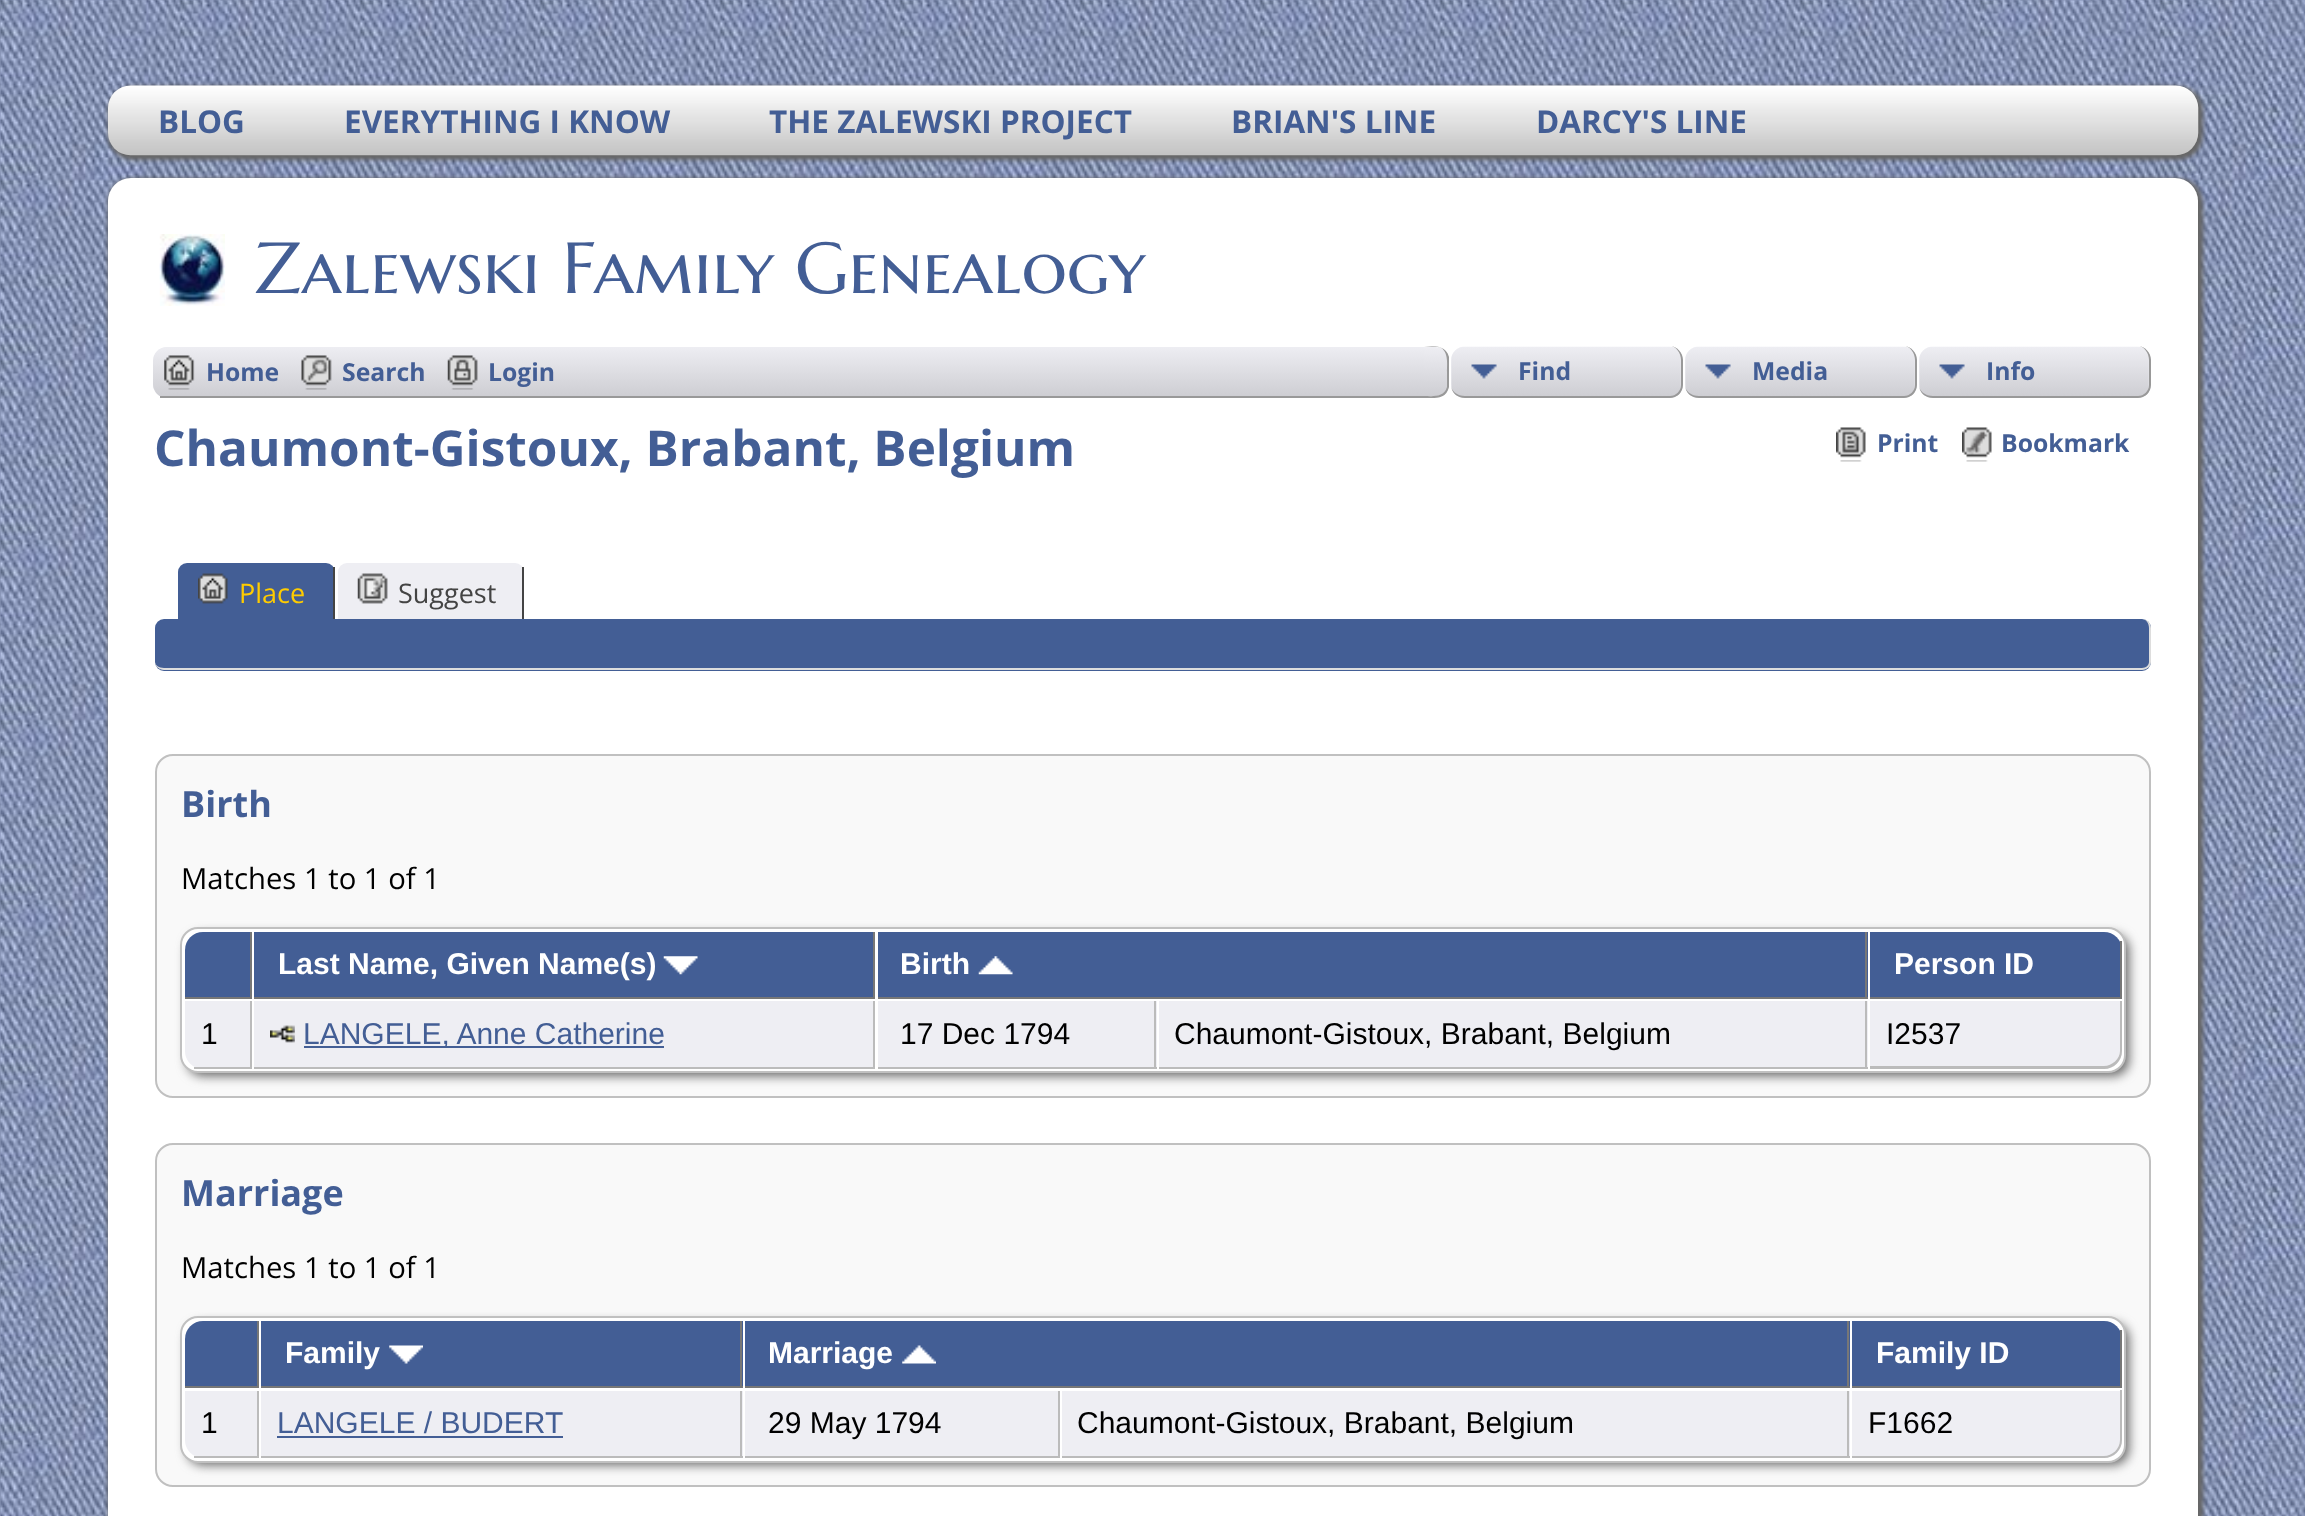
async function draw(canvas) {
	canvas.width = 2305;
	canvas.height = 1516;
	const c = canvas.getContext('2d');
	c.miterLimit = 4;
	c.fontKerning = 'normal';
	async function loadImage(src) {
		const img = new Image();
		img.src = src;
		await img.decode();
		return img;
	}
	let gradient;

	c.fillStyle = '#fff';
	c.fillRect(0, 0, 2305, 1516);
	c.drawImage(await loadImage('img1.png'), 0, 0, 2305, 1516);
	c.fillStyle = '#666';
	c.filter = 'blur(2px)';
	c.beginPath();
	c.roundRect(108, 86, 2095, 74, 25);
	c.fill();
	c.filter = 'none';
	c.drawImage(await loadImage('img2.png'), 108, 85, 2091, 71);
	c.font = 'bold 31.5px Open Sans';
	c.fillStyle = '#435e95';
	for (const [text, x, y] of [
		['BLOG', 158, 133],
		['EVERYTHING I KNOW', 344, 133],
		['THE ZALEWSKI PROJECT', 769, 133],
		['BRIAN\'S LINE', 1231, 133],
		['DARCY\'S LINE', 1536, 133],
	]) {
		c.fillText(text, x, y);
	}
	c.fillStyle = '#666';
	c.filter = 'blur(2px)';
	c.beginPath();
	c.roundRect(108, 178, 2095, 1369, 25);
	c.fill();
	c.filter = 'none';
	c.fillStyle = '#fff';
	c.beginPath();
	c.roundRect(108, 178, 2090, 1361, 23);
	c.fill();
	c.drawImage(await loadImage('img3.png'), 159, 234, 66, 72);
	c.font = '72px Marcellus SC';
	c.fillStyle = '#435e95';
	c.fillText('Zalewski Family Genealogy', 255, 293);
	c.fillStyle = '#eeeef3';
	c.beginPath();
	c.roundRect(153, 347, 2000, 51, 14);
	c.fill();
	c.save();
	c.beginPath();
	c.roundRect(153, 347, 2000, 51, 14);
	c.clip();
	gradient = c.createLinearGradient(1153, 346, 1153, 396);
	gradient.addColorStop(0, '#eeeef3');
	gradient.addColorStop(1, '#ceced3');
	c.fillStyle = gradient;
	c.beginPath();
	c.roundRect(153, 347, 2000, 49, [14, 14, 0, 0]);
	c.fill();
	c.restore();
	c.fillStyle = '#999';
	c.fillRect(160, 396, 1264, 2);
	c.drawImage(await loadImage('img4.png'), 164, 355, 31, 35);
	c.font = 'bold 24.75px Open Sans';
	c.fillStyle = '#435e95';
	c.fillText('Home', 206, 381);
	c.drawImage(await loadImage('img5.png'), 301, 355, 31, 35);
	c.fillText('Search', 342, 381);
	c.drawImage(await loadImage('img6.png'), 447, 355, 31, 35);
	c.fillText('Login', 488, 381);
	c.fillStyle = '#fff';
	c.fillRect(1425, 347, 728, 51);
	c.save();
	c.beginPath();
	c.roundRect(1424, 347, 25, 51, [0, 14, 14, 0]);
	c.clip();
	gradient = c.createLinearGradient(1436, 347, 1436, 396);
	gradient.addColorStop(0, '#eeeef3');
	gradient.addColorStop(1, '#ceced3');
	c.fillStyle = gradient;
	c.fillRect(1424, 347, 25, 49);
	c.restore();
	c.fillStyle = '#999';
	c.beginPath();
	c.moveTo(1424, 346);
	c.bezierCurveTo(1434, 346, 1446, 345, 1449, 357);
	c.lineTo(1449, 387);
	c.bezierCurveTo(1446, 400, 1434, 398, 1424, 398);
	c.closePath();
	c.moveTo(1424, 346);
	c.lineTo(1438, 347);
	c.bezierCurveTo(1449, 349, 1447, 364, 1447, 372);
	c.lineTo(1447, 387);
	c.bezierCurveTo(1444, 398, 1432, 396, 1424, 396);
	c.closePath();
	c.fill('evenodd');
	c.fillStyle = '#eeeef3';
	c.beginPath();
	c.roundRect(1451, 347, 232, 51, 14);
	c.fill();
	c.drawImage(await loadImage('img7.png'), 1451, 346, 230, 50);
	c.fillStyle = '#999';
	c.beginPath();
	c.moveTo(1465, 346);
	c.lineTo(1670, 346);
	c.bezierCurveTo(1677, 346, 1683, 353, 1683, 360);
	c.lineTo(1683, 385);
	c.bezierCurveTo(1683, 392, 1677, 398, 1670, 398);
	c.lineTo(1465, 398);
	c.bezierCurveTo(1457, 398, 1451, 392, 1451, 385);
	c.lineTo(1451, 360);
	c.bezierCurveTo(1451, 353, 1457, 346, 1465, 346);
	c.closePath();
	c.moveTo(1465, 346);
	c.lineTo(1670, 346);
	c.bezierCurveTo(1676, 346, 1681, 353, 1681, 360);
	c.lineTo(1681, 385);
	c.bezierCurveTo(1681, 391, 1676, 396, 1670, 396);
	c.lineTo(1465, 396);
	c.bezierCurveTo(1457, 396, 1451, 391, 1451, 385);
	c.lineTo(1451, 360);
	c.bezierCurveTo(1451, 353, 1457, 346, 1465, 346);
	c.closePath();
	c.fill('evenodd');
	c.fillStyle = '#435e95';
	c.fillText('Find', 1518, 380);
	c.fillStyle = '#eeeef3';
	c.beginPath();
	c.roundRect(1685, 347, 232, 51, 14);
	c.fill();
	c.drawImage(await loadImage('img8.png'), 1685, 346, 230, 50);
	c.fillStyle = '#999';
	c.beginPath();
	c.moveTo(1699, 346);
	c.lineTo(1904, 346);
	c.bezierCurveTo(1911, 346, 1917, 353, 1917, 360);
	c.lineTo(1917, 385);
	c.bezierCurveTo(1917, 392, 1911, 398, 1904, 398);
	c.lineTo(1699, 398);
	c.bezierCurveTo(1691, 398, 1685, 392, 1685, 385);
	c.lineTo(1685, 360);
	c.bezierCurveTo(1685, 353, 1691, 346, 1699, 346);
	c.closePath();
	c.moveTo(1699, 346);
	c.lineTo(1904, 346);
	c.bezierCurveTo(1910, 346, 1915, 353, 1915, 360);
	c.lineTo(1915, 385);
	c.bezierCurveTo(1915, 391, 1910, 396, 1904, 396);
	c.lineTo(1699, 396);
	c.bezierCurveTo(1691, 396, 1685, 391, 1685, 385);
	c.lineTo(1685, 360);
	c.bezierCurveTo(1685, 353, 1691, 346, 1699, 346);
	c.closePath();
	c.fill('evenodd');
	c.fillStyle = '#435e95';
	c.fillText('Media', 1752, 380);
	c.fillStyle = '#eeeef3';
	c.beginPath();
	c.roundRect(1919, 347, 232, 51, 14);
	c.fill();
	c.drawImage(await loadImage('img9.png'), 1919, 346, 230, 50);
	c.fillStyle = '#999';
	c.beginPath();
	c.moveTo(1933, 346);
	c.lineTo(2138, 346);
	c.bezierCurveTo(2145, 346, 2151, 353, 2151, 360);
	c.lineTo(2151, 385);
	c.bezierCurveTo(2151, 392, 2145, 398, 2138, 398);
	c.lineTo(1933, 398);
	c.bezierCurveTo(1925, 398, 1919, 392, 1919, 385);
	c.lineTo(1919, 360);
	c.bezierCurveTo(1919, 353, 1925, 346, 1933, 346);
	c.closePath();
	c.moveTo(1933, 346);
	c.lineTo(2138, 346);
	c.bezierCurveTo(2144, 346, 2149, 353, 2149, 360);
	c.lineTo(2149, 385);
	c.bezierCurveTo(2149, 391, 2144, 396, 2138, 396);
	c.lineTo(1933, 396);
	c.bezierCurveTo(1925, 396, 1919, 391, 1919, 385);
	c.lineTo(1919, 360);
	c.bezierCurveTo(1919, 353, 1925, 346, 1933, 346);
	c.closePath();
	c.fill('evenodd');
	c.fillStyle = '#435e95';
	c.fillText('Info', 1986, 380);
	c.font = 'bold 49.5px Open Sans';
	c.fillText('Chaumont-Gistoux, Brabant, Belgium', 154, 466);
	c.drawImage(await loadImage('img10.png'), 1836, 427, 30, 35);
	c.font = 'bold 24.75px Open Sans';
	c.fillText('Print', 1877, 452);
	c.drawImage(await loadImage('img11.png'), 1962, 427, 30, 35);
	c.fillText('Bookmark', 2001, 452);
	c.beginPath();
	c.roundRect(178, 563, 157, 56, [9, 9, 0, 0]);
	c.fill();
	c.fillStyle = '#444';
	c.fillRect(333, 567, 2, 52);
	c.drawImage(await loadImage('img12.png'), 198, 573, 30, 31);
	c.font = '27px Open Sans';
	c.fillStyle = '#fc0';
	c.fillText('Place', 239, 603);
	c.fillStyle = '#eeeef3';
	c.beginPath();
	c.roundRect(338, 563, 186, 56, [9, 9, 0, 0]);
	c.fill();
	c.fillStyle = '#444';
	c.fillRect(522, 567, 2, 52);
	c.drawImage(await loadImage('img13.png'), 357, 573, 31, 31);
	c.fillText('Suggest', 398, 603);
	c.fillStyle = '#435e95';
	c.beginPath();
	c.roundRect(155, 619, 1996, 52, 9);
	c.fill();
	c.fillStyle = '#ddd';
	c.beginPath();
	c.moveTo(164, 619);
	c.lineTo(2142, 619);
	c.bezierCurveTo(2147, 619, 2151, 623, 2151, 628);
	c.lineTo(2151, 662);
	c.bezierCurveTo(2151, 666, 2147, 670, 2142, 670);
	c.lineTo(164, 670);
	c.bezierCurveTo(159, 670, 155, 666, 155, 662);
	c.lineTo(155, 628);
	c.bezierCurveTo(155, 623, 159, 619, 164, 619);
	c.closePath();
	c.moveTo(164, 619);
	c.lineTo(2142, 619);
	c.bezierCurveTo(2146, 619, 2149, 623, 2149, 628);
	c.lineTo(2149, 662);
	c.bezierCurveTo(2149, 665, 2146, 668, 2142, 668);
	c.lineTo(164, 668);
	c.bezierCurveTo(159, 668, 155, 665, 155, 662);
	c.lineTo(155, 628);
	c.bezierCurveTo(155, 623, 159, 619, 164, 619);
	c.closePath();
	c.fill('evenodd');
	c.fillStyle = '#f9f9f9';
	c.beginPath();
	c.roundRect(156, 755, 1994, 342, 17);
	c.fill();
	c.strokeStyle = '#c0c0c0';
	c.lineWidth = 2;
	c.stroke();
	c.font = 'bold 36px Open Sans';
	c.fillStyle = '#435e95';
	c.fillText('Birth', 181, 817);
	c.font = '29.25px Open Sans';
	c.fillStyle = '#000';
	c.fillText('Matches 1 to 1 of 1', 181, 889);
	c.fillStyle = '#666';
	c.filter = 'blur(5.5px)';
	c.beginPath();
	c.roundRect(187, 934, 1942, 142, 16);
	c.fill();
	c.filter = 'none';
	c.fillStyle = '#fff';
	c.beginPath();
	c.roundRect(181, 928, 1944, 144, 17);
	c.fill();
	c.stroke();
	c.fillStyle = '#435e95';
	c.beginPath();
	c.roundRect(185, 932, 67, 67, [18, 0, 0, 0]);
	c.fill();
	for (const [x, y, w, h, color] of [
		[250, 932, 2, 67, '#777'],
		[185, 997, 67, 2, '#777'],
		[254, 932, 619, 65, '#435e95'],
		[873, 932, 2, 67, '#777'],
		[254, 997, 621, 2, '#777'],
	]) {
		c.fillStyle = color;
		c.fillRect(x, y, w, h);
	}
	c.font = 'bold 30px Liberation Sans';
	c.fillStyle = '#fff';
	c.fillText('Last Name, Given Name(s)', 278, 974);
	c.drawImage(await loadImage('img14.png'), 663, 956, 35, 19);
	for (const [x, y, w, h, color] of [
		[878, 932, 990, 65, '#435e95'],
		[1865, 932, 2, 67, '#777'],
		[878, 997, 990, 2, '#777'],
	]) {
		c.fillStyle = color;
		c.fillRect(x, y, w, h);
	}
	c.fillStyle = '#fff';
	c.fillText('Birth', 900, 974);
	c.drawImage(await loadImage('img15.png'), 978, 956, 35, 19);
	c.fillStyle = '#435e95';
	c.beginPath();
	c.roundRect(1870, 932, 252, 67, [0, 18, 0, 0]);
	c.fill();
	c.fillStyle = '#777';
	c.fillRect(2120, 941, 2, 58);
	c.fillRect(1870, 997, 252, 2);
	c.fillStyle = '#fff';
	c.fillText('Person ID', 1894, 974);
	c.fillStyle = '#eeeef3';
	c.beginPath();
	c.roundRect(185, 1001, 67, 68, [0, 0, 0, 18]);
	c.fill();
	c.fillStyle = '#bbb';
	c.fillRect(250, 1001, 2, 68);
	c.fillRect(194, 1067, 58, 2);
	c.font = '30px Liberation Sans';
	c.fillStyle = '#000';
	c.fillText('1', 201, 1044);
	for (const [x, y, w, h, color] of [
		[254, 1001, 619, 66, '#eeeef3'],
		[873, 1001, 2, 68, '#bbb'],
		[254, 1067, 621, 2, '#bbb'],
	]) {
		c.fillStyle = color;
		c.fillRect(x, y, w, h);
	}
	c.drawImage(await loadImage('img16.png'), 270, 1025, 25, 18);
	c.fillStyle = '#435e95';
	c.fillRect(304, 1046, 360, 2);
	c.fillText('LANGELE, Anne Catherine', 303, 1044);
	for (const [x, y, w, h, color] of [
		[878, 1001, 279, 66, '#eeeef3'],
		[1154, 1001, 2, 68, '#bbb'],
		[878, 1067, 279, 2, '#bbb'],
	]) {
		c.fillStyle = color;
		c.fillRect(x, y, w, h);
	}
	c.fillStyle = '#000';
	c.fillText('17 Dec 1794', 900, 1044);
	for (const [x, y, w, h, color] of [
		[1159, 1001, 709, 66, '#eeeef3'],
		[1865, 1001, 2, 68, '#bbb'],
		[1159, 1067, 709, 2, '#bbb'],
	]) {
		c.fillStyle = color;
		c.fillRect(x, y, w, h);
	}
	c.fillStyle = '#000';
	c.fillText('Chaumont-Gistoux, Brabant, Belgium', 1174, 1044);
	c.fillStyle = '#eeeef3';
	c.beginPath();
	c.roundRect(1870, 1001, 252, 68, [0, 0, 18, 0]);
	c.fill();
	c.fillStyle = '#bbb';
	c.beginPath();
	c.moveTo(1870, 1001);
	c.lineTo(2122, 1001);
	c.lineTo(2122, 1051);
	c.bezierCurveTo(2122, 1061, 2114, 1069, 2104, 1069);
	c.lineTo(1870, 1069);
	c.closePath();
	c.moveTo(1870, 1001);
	c.lineTo(2120, 1001);
	c.lineTo(2120, 1051);
	c.bezierCurveTo(2120, 1059, 2112, 1066, 2104, 1066);
	c.lineTo(1870, 1066);
	c.closePath();
	c.fill('evenodd');
	c.fillStyle = '#000';
	c.fillText('I2537', 1886, 1044);
	c.fillStyle = '#f9f9f9';
	c.beginPath();
	c.roundRect(156, 1144, 1994, 342, 17);
	c.fill();
	c.stroke();
	c.font = 'bold 36px Open Sans';
	c.fillStyle = '#435e95';
	c.fillText('Marriage', 181, 1206);
	c.font = '29.25px Open Sans';
	c.fillStyle = '#000';
	c.fillText('Matches 1 to 1 of 1', 181, 1278);
	c.fillStyle = '#666';
	c.filter = 'blur(5.5px)';
	c.beginPath();
	c.roundRect(187, 1323, 1942, 142, 16);
	c.fill();
	c.filter = 'none';
	c.fillStyle = '#fff';
	c.beginPath();
	c.roundRect(181, 1317, 1944, 145, 17);
	c.fill();
	c.stroke();
	c.fillStyle = '#435e95';
	c.beginPath();
	c.roundRect(185, 1321, 74, 67, [18, 0, 0, 0]);
	c.fill();
	for (const [x, y, w, h, color] of [
		[257, 1321, 2, 67, '#777'],
		[185, 1386, 74, 2, '#777'],
		[261, 1321, 482, 65, '#435e95'],
		[740, 1321, 2, 67, '#777'],
		[261, 1386, 482, 2, '#777'],
	]) {
		c.fillStyle = color;
		c.fillRect(x, y, w, h);
	}
	c.font = 'bold 30px Liberation Sans';
	c.fillStyle = '#fff';
	c.fillText('Family', 285, 1363);
	c.drawImage(await loadImage('img17.png'), 389, 1345, 34, 19);
	for (const [x, y, w, h, color] of [
		[745, 1321, 1105, 65, '#435e95'],
		[1847, 1321, 2, 67, '#777'],
		[745, 1386, 1105, 2, '#777'],
	]) {
		c.fillStyle = color;
		c.fillRect(x, y, w, h);
	}
	c.fillStyle = '#fff';
	c.fillText('Marriage', 768, 1363);
	c.drawImage(await loadImage('img18.png'), 902, 1345, 34, 19);
	c.fillStyle = '#435e95';
	c.beginPath();
	c.roundRect(1852, 1321, 270, 67, [0, 18, 0, 0]);
	c.fill();
	c.fillStyle = '#777';
	c.fillRect(2120, 1330, 2, 58);
	c.fillRect(1852, 1386, 270, 2);
	c.fillStyle = '#fff';
	c.fillText('Family ID', 1876, 1363);
	c.fillStyle = '#eeeef3';
	c.beginPath();
	c.roundRect(185, 1391, 74, 67, [0, 0, 0, 18]);
	c.fill();
	c.fillStyle = '#bbb';
	c.fillRect(257, 1391, 2, 67);
	c.fillRect(194, 1456, 65, 2);
	c.font = '30px Liberation Sans';
	c.fillStyle = '#000';
	c.fillText('1', 201, 1433);
	for (const [x, y, w, h, color] of [
		[261, 1391, 482, 65, '#eeeef3'],
		[740, 1391, 2, 67, '#bbb'],
		[261, 1456, 482, 2, '#bbb'],
	]) {
		c.fillStyle = color;
		c.fillRect(x, y, w, h);
	}
	c.fillStyle = '#435e95';
	c.fillText('LANGELE / BUDERT', 277, 1433);
	for (const [x, y, w, h, color] of [
		[277, 1436, 286, 2, '#435e95'],
		[745, 1391, 313, 65, '#eeeef3'],
		[1058, 1391, 2, 67, '#bbb'],
		[745, 1456, 315, 2, '#bbb'],
	]) {
		c.fillStyle = color;
		c.fillRect(x, y, w, h);
	}
	c.fillStyle = '#000';
	c.fillText('29 May 1794', 768, 1433);
	for (const [x, y, w, h, color] of [
		[1062, 1391, 788, 65, '#eeeef3'],
		[1847, 1391, 2, 67, '#bbb'],
		[1062, 1456, 788, 2, '#bbb'],
	]) {
		c.fillStyle = color;
		c.fillRect(x, y, w, h);
	}
	c.fillStyle = '#000';
	c.fillText('Chaumont-Gistoux, Brabant, Belgium', 1077, 1433);
	c.fillStyle = '#eeeef3';
	c.beginPath();
	c.roundRect(1852, 1391, 270, 67, [0, 0, 18, 0]);
	c.fill();
	c.fillStyle = '#bbb';
	c.beginPath();
	c.moveTo(1852, 1390);
	c.lineTo(2122, 1390);
	c.lineTo(2122, 1440);
	c.bezierCurveTo(2122, 1450, 2114, 1458, 2104, 1458);
	c.lineTo(1852, 1458);
	c.closePath();
	c.moveTo(1852, 1390);
	c.lineTo(2120, 1390);
	c.lineTo(2120, 1440);
	c.bezierCurveTo(2120, 1449, 2112, 1456, 2104, 1456);
	c.lineTo(1852, 1456);
	c.closePath();
	c.fill('evenodd');
	c.fillStyle = '#000';
	c.fillText('F1662', 1868, 1433);
}

draw(document.querySelector('canvas'));
